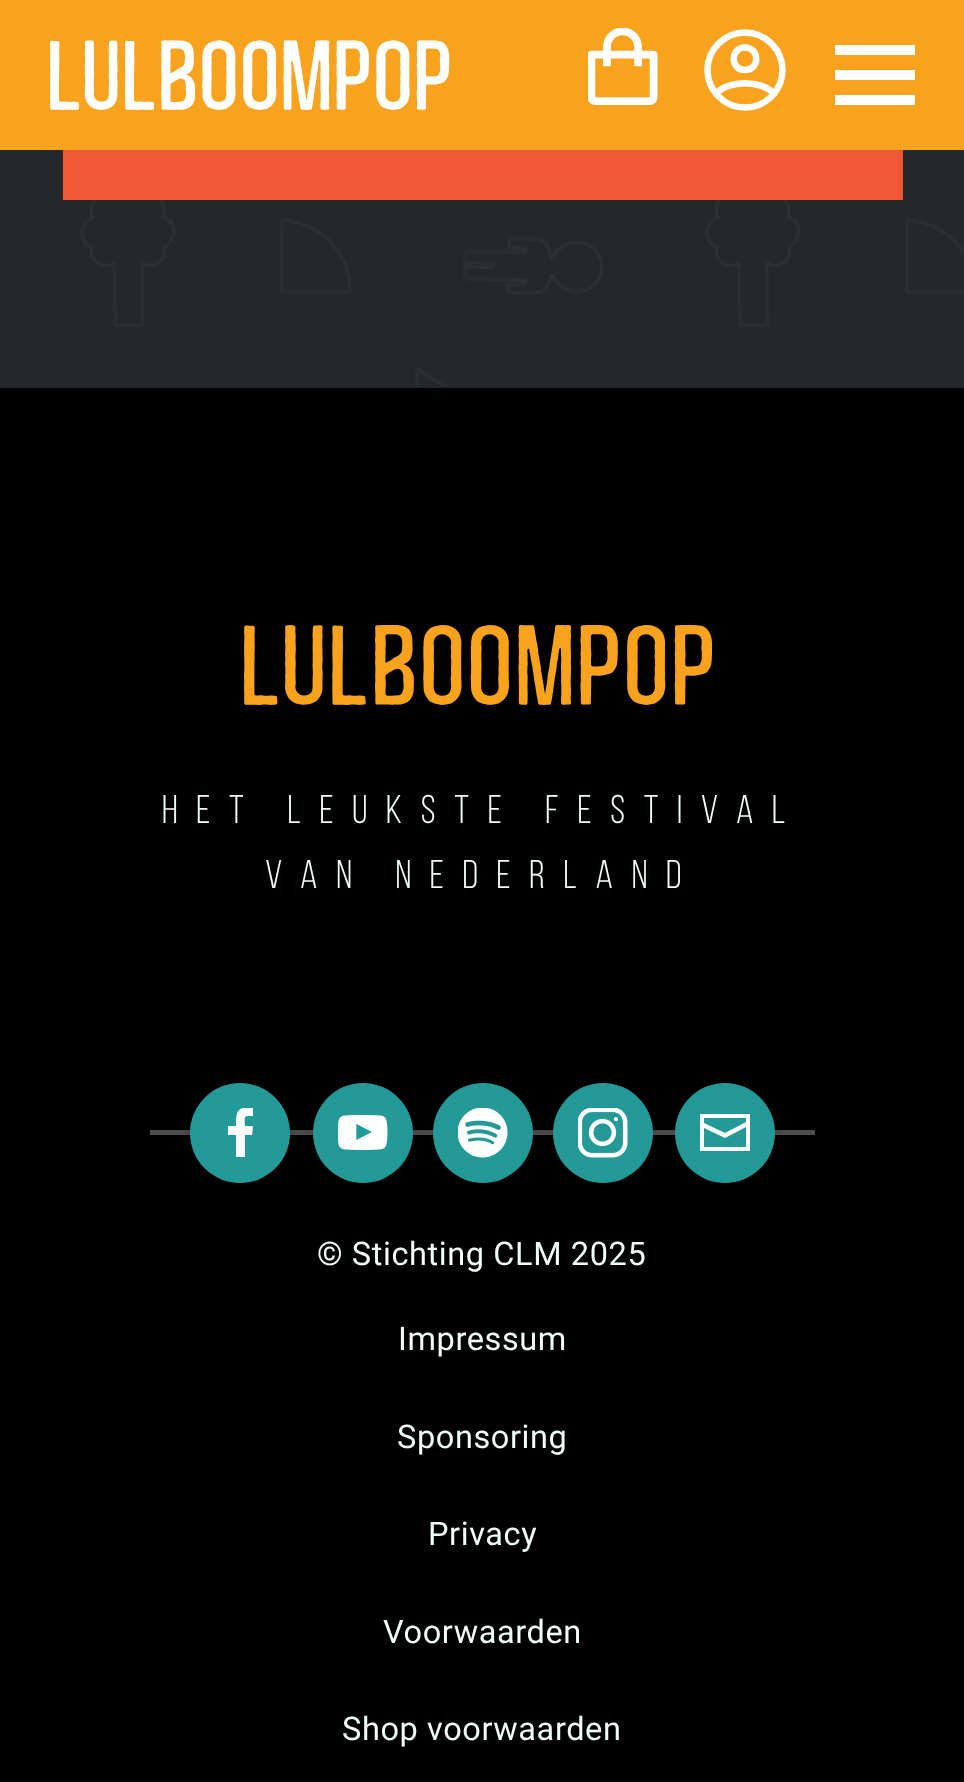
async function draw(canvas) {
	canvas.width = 964;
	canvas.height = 1782;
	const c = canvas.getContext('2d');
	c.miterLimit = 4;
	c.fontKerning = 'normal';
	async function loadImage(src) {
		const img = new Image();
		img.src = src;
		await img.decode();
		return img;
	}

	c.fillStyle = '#000';
	c.fillRect(0, 0, 964, 1782);
	c.fillStyle = '#f9a21d';
	c.fillRect(0, 0, 964, 150);
	c.letterSpacing = '2.4px';
	c.font = '900 100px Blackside';
	c.fillStyle = '#fff';
	c.fillText('LULBOOMPOP', 50, 110);
	c.drawImage(await loadImage('img1.png'), 588, 28, 70, 77);
	c.beginPath();
	c.moveTo(745, 32.5);
	c.bezierCurveTo(724.5, 32.5, 707.5, 49.5, 707.5, 70);
	c.bezierCurveTo(707.5, 90.5, 724.5, 107.5, 745, 107.5);
	c.bezierCurveTo(765.5, 107.5, 782.5, 90.5, 782.5, 70);
	c.bezierCurveTo(782.5, 49.5, 765.5, 32.5, 745, 32.5);
	c.closePath();
	c.strokeStyle = '#fff';
	c.lineWidth = 6.5;
	c.lineCap = 'round';
	c.lineJoin = 'round';
	c.stroke();
	c.beginPath();
	c.moveTo(716, 94);
	c.bezierCurveTo(727.5, 79.5, 762.5, 79.5, 774, 94);
	c.moveTo(745, 70);
	c.bezierCurveTo(760, 70, 760, 47.5, 745, 47.5);
	c.bezierCurveTo(730, 47.5, 730, 70, 745, 70);
	c.closePath();
	c.stroke();
	for (const [x, y, w, h, color] of [
		[835, 70, 80, 10, '#fff'],
		[835, 45, 80, 10, '#fff'],
		[835, 95, 80, 10, '#fff'],
		[0, 150, 964, 238, '#25282b'],
	]) {
		c.fillStyle = color;
		c.fillRect(x, y, w, h);
	}
	c.drawImage(await loadImage('img2.png'), 79, 200, 885, 187);
	c.fillStyle = '#f05734';
	c.fillRect(63, 150, 840, 50);
	c.letterSpacing = '3.75px';
	c.font = '900 115px Blackside';
	c.fillStyle = '#f9a21d';
	c.fillText('LULBOOMPOP', 244, 705);
	c.letterSpacing = '18.7px';
	c.font = '40px Bebas Neue';
	c.fillStyle = '#f0fdf8';
	c.fillText('HET LEUKSTE FESTIVAL', 162, 823);
	c.fillText('VAN NEDERLAND', 265, 888);
	c.fillStyle = '#4d4d4d';
	c.fillRect(150, 1130, 665, 5);
	c.fillStyle = '#00000029';
	c.filter = 'blur(7.5px)';
	c.beginPath();
	c.roundRect(190, 1090, 100, 100, 50);
	c.fill();
	c.filter = 'none';
	c.fillStyle = '#249a98';
	c.beginPath();
	c.arc(240, 1133, 50, 0, 2 * Math.PI);
	c.fill();
	c.save();
	c.beginPath();
	c.rect(225, 1108, 30, 50);
	c.clip();
	c.fillStyle = '#fff';
	c.beginPath();
	c.moveTo(248, 1116);
	c.lineTo(253, 1116);
	c.lineTo(253, 1108);
	c.bezierCurveTo(237, 1106, 236, 1111, 236, 1126);
	c.lineTo(228, 1126);
	c.lineTo(228, 1135);
	c.lineTo(236, 1135);
	c.lineTo(236, 1157);
	c.lineTo(245, 1157);
	c.lineTo(245, 1135);
	c.lineTo(252, 1135);
	c.lineTo(253, 1126);
	c.lineTo(245, 1126);
	c.bezierCurveTo(245, 1123, 243, 1115, 248, 1116);
	c.closePath();
	c.fill('evenodd');
	c.restore();
	c.fillStyle = '#00000029';
	c.filter = 'blur(7.5px)';
	c.beginPath();
	c.roundRect(313, 1090, 100, 100, 50);
	c.fill();
	c.filter = 'none';
	c.fillStyle = '#249a98';
	c.beginPath();
	c.arc(363, 1133, 50, 0, 2 * Math.PI);
	c.fill();
	c.drawImage(await loadImage('img3.png'), 338, 1115, 50, 35);
	c.fillStyle = '#00000029';
	c.filter = 'blur(7.5px)';
	c.beginPath();
	c.roundRect(433, 1090, 100, 100, 50);
	c.fill();
	c.filter = 'none';
	c.fillStyle = '#249a98';
	c.beginPath();
	c.arc(483, 1133, 50, 0, 2 * Math.PI);
	c.fill();
	c.drawImage(await loadImage('img4.png'), 458, 1108, 50, 50);
	c.fillStyle = '#00000029';
	c.filter = 'blur(7.5px)';
	c.beginPath();
	c.roundRect(553, 1090, 100, 100, 50);
	c.fill();
	c.filter = 'none';
	c.fillStyle = '#249a98';
	c.beginPath();
	c.arc(603, 1133, 50, 0, 2 * Math.PI);
	c.fill();
	c.drawImage(await loadImage('img5.png'), 578, 1108, 50, 50);
	c.fillStyle = '#00000029';
	c.filter = 'blur(7.5px)';
	c.beginPath();
	c.roundRect(675, 1090, 100, 100, 50);
	c.fill();
	c.filter = 'none';
	c.fillStyle = '#249a98';
	c.beginPath();
	c.arc(725, 1133, 50, 0, 2 * Math.PI);
	c.fill();
	c.fillStyle = '#fff';
	c.beginPath();
	c.moveTo(750, 1151);
	c.lineTo(700, 1151);
	c.lineTo(700, 1114);
	c.lineTo(750, 1114);
	c.closePath();
	c.moveTo(704, 1147);
	c.lineTo(746, 1147);
	c.lineTo(746, 1127);
	c.lineTo(725, 1138);
	c.lineTo(704, 1128);
	c.closePath();
	c.moveTo(725, 1133);
	c.lineTo(746, 1122);
	c.lineTo(746, 1118);
	c.lineTo(704, 1118);
	c.lineTo(704, 1123);
	c.closePath();
	c.fill();
	c.letterSpacing = '0.6px';
	c.font = '32.5px Roboto';
	c.fillStyle = '#f0fdf8';
	for (const [text, x, y] of [
		['© Stichting CLM 2025', 317, 1265],
		['Impressum', 398, 1350],
		['Sponsoring', 397, 1448],
		['Privacy', 428, 1545],
		['Voorwaarden', 383, 1643],
		['Shop voorwaarden', 342, 1740],
	]) {
		c.fillText(text, x, y);
	}
}

draw(document.querySelector('canvas'));
